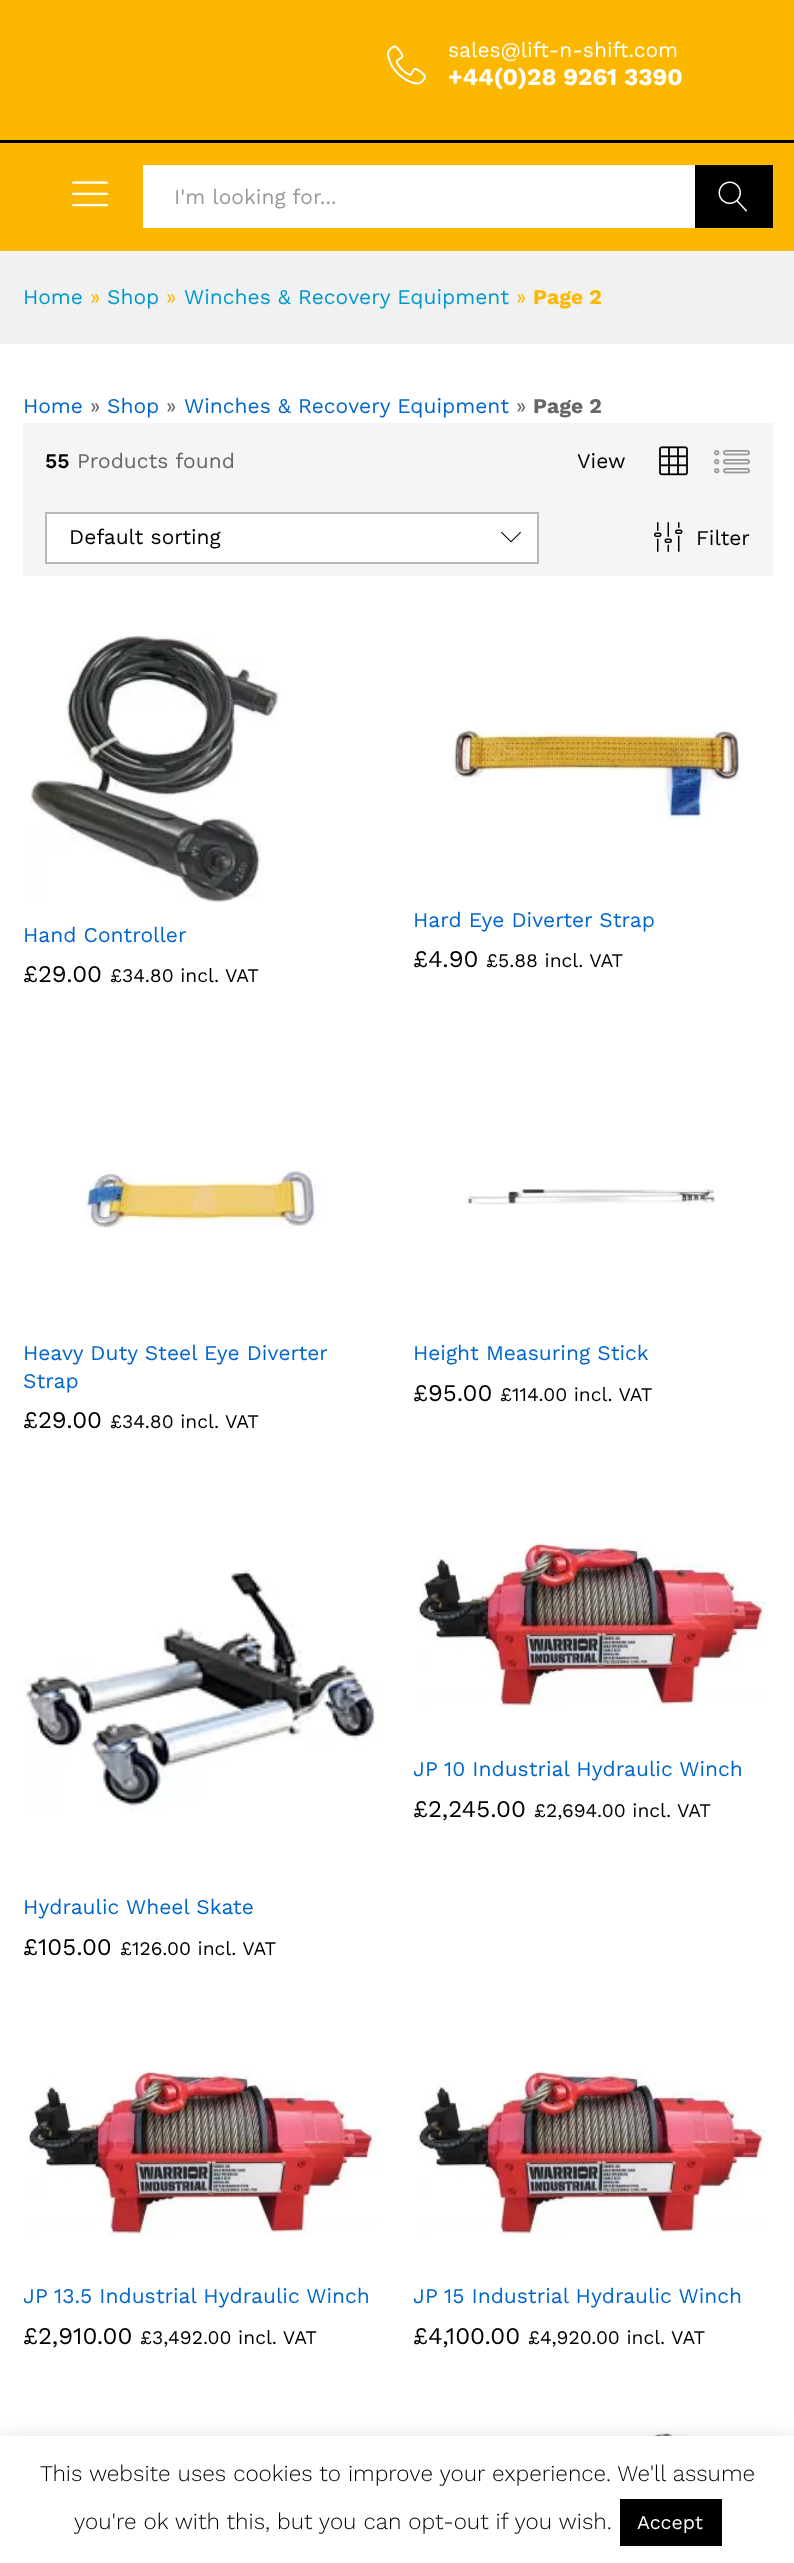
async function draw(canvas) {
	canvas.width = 794;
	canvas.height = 2563;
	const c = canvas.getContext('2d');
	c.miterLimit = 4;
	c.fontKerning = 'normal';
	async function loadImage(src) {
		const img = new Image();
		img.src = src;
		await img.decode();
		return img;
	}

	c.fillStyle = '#fff';
	c.fillRect(0, 0, 794, 2563);
	c.fillStyle = '#fcb800';
	c.fillRect(0, 0, 794, 251);
	c.fillStyle = '#000';
	c.fillRect(0, 140, 794, 3);
	c.drawImage(await loadImage('img1.png'), 387, 45, 39, 40);
	c.font = '21px Work Sans';
	c.fillStyle = '#fff';
	c.fillText('sales@lift-n-shift.com', 448, 57);
	c.font = 'bold 24px Work Sans';
	c.fillText('+44(0)28 9261 3390', 448, 85);
	c.drawImage(await loadImage('img2.png'), 72, 181, 36, 26);
	c.fillRect(143, 165, 552, 63);
	c.font = '21px Work Sans';
	c.fillStyle = '#999';
	c.fillText('I\'m looking for...', 174, 204);
	c.fillStyle = '#000';
	c.fillRect(695, 165, 78, 63);
	c.drawImage(await loadImage('img3.png'), 718, 181, 29, 31);
	c.fillStyle = '#f1f1f1';
	c.fillRect(0, 251, 794, 93);
	c.fillStyle = '#09c';
	c.fillText('Home', 23, 304);
	c.fillStyle = '#fcb800';
	c.fillText('»', 90, 304);
	c.fillStyle = '#09c';
	c.fillText('Shop', 107, 304);
	c.fillStyle = '#fcb800';
	c.fillText('»', 166, 304);
	c.fillStyle = '#09c';
	c.fillText('Winches & Recovery Equipment', 184, 304);
	c.fillStyle = '#fcb800';
	c.fillText('»', 516, 304);
	c.font = 'bold 21px Work Sans';
	c.fillText('Page 2', 533, 304);
	c.font = '21px Work Sans';
	c.fillStyle = '#06c';
	c.fillText('Home', 23, 413);
	c.fillStyle = '#666';
	c.fillText('»', 90, 413);
	c.fillStyle = '#06c';
	c.fillText('Shop', 107, 413);
	c.fillStyle = '#666';
	c.fillText('»', 166, 413);
	c.fillStyle = '#06c';
	c.fillText('Winches & Recovery Equipment', 184, 413);
	c.fillStyle = '#666';
	c.fillText('»', 516, 413);
	c.font = 'bold 21px Work Sans';
	c.fillText('Page 2', 533, 413);
	c.fillStyle = '#f5f5f5';
	c.fillRect(23, 423, 750, 153);
	c.font = '600 21px Work Sans';
	c.fillStyle = '#000';
	c.fillText('55', 45, 468);
	c.font = '21px Work Sans';
	c.fillStyle = '#666';
	c.fillText('Products found', 77, 468);
	c.fillStyle = '#000';
	c.fillText('View', 577, 468);
	c.drawImage(await loadImage('img4.png'), 659, 446, 29, 30);
	c.drawImage(await loadImage('img5.png'), 714, 450, 36, 24);
	c.fillStyle = '#fff';
	c.beginPath();
	c.rect(46, 513, 492, 50);
	c.fill();
	c.strokeStyle = '#b8b8b8';
	c.lineWidth = 2;
	c.stroke();
	c.fillStyle = '#000';
	c.fillText('Default sorting', 69, 544);
	c.drawImage(await loadImage('img6.png'), 501, 531, 20, 12);
	c.drawImage(await loadImage('img7.png'), 654, 522, 29, 30);
	c.fillText('Filter', 696, 545);
	c.drawImage(await loadImage('img8.png'), 29, 636, 252, 267);
	c.fillStyle = '#06c';
	c.fillText('Hand Controller', 23, 942);
	c.font = '24px Work Sans';
	c.fillStyle = '#000';
	c.fillText('£29.00', 23, 982);
	c.font = '19.25px Work Sans';
	c.fillText('£34.80 incl. VAT', 110, 982);
	c.drawImage(await loadImage('img9.png'), 452, 727, 288, 93);
	c.font = '21px Work Sans';
	c.fillStyle = '#06c';
	c.fillText('Hard Eye Diverter Strap', 413, 927);
	c.font = '24px Work Sans';
	c.fillStyle = '#000';
	c.fillText('£4.90', 413, 967);
	c.font = '19.25px Work Sans';
	c.fillText('£5.88 incl. VAT', 486, 967);
	c.drawImage(await loadImage('img10.png'), 84, 1170, 237, 58);
	c.font = '21px Work Sans';
	c.fillStyle = '#06c';
	c.fillText('Heavy Duty Steel Eye Diverter', 23, 1360);
	c.fillText('Strap', 23, 1388);
	c.font = '24px Work Sans';
	c.fillStyle = '#000';
	c.fillText('£29.00', 23, 1428);
	c.font = '19.25px Work Sans';
	c.fillText('£34.80 incl. VAT', 110, 1428);
	c.drawImage(await loadImage('img11.png'), 465, 1188, 250, 17);
	c.font = '21px Work Sans';
	c.fillStyle = '#06c';
	c.fillText('Height Measuring Stick', 413, 1360);
	c.font = '24px Work Sans';
	c.fillStyle = '#000';
	c.fillText('£95.00', 413, 1401);
	c.font = '19.25px Work Sans';
	c.fillText('£114.00 incl. VAT', 500, 1401);
	c.drawImage(await loadImage('img12.png'), 417, 1542, 351, 165);
	c.font = '21px Work Sans';
	c.fillStyle = '#06c';
	c.fillText('JP 10 Industrial Hydraulic Winch', 413, 1776);
	c.font = '24px Work Sans';
	c.fillStyle = '#000';
	c.fillText('£2,245.00', 413, 1817);
	c.font = '19.25px Work Sans';
	c.fillText('£2,694.00 incl. VAT', 534, 1817);
	c.drawImage(await loadImage('img13.png'), 23, 1569, 359, 244);
	c.font = '21px Work Sans';
	c.fillStyle = '#06c';
	c.fillText('Hydraulic Wheel Skate', 23, 1914);
	c.font = '24px Work Sans';
	c.fillStyle = '#000';
	c.fillText('£105.00', 23, 1955);
	c.font = '19.25px Work Sans';
	c.fillText('£126.00 incl. VAT', 120, 1955);
	c.drawImage(await loadImage('img14.png'), 27, 2070, 351, 165);
	c.font = '21px Work Sans';
	c.fillStyle = '#06c';
	c.fillText('JP 13.5 Industrial Hydraulic Winch', 23, 2303);
	c.font = '24px Work Sans';
	c.fillStyle = '#000';
	c.fillText('£2,910.00', 23, 2344);
	c.font = '19.25px Work Sans';
	c.fillText('£3,492.00 incl. VAT', 140, 2344);
	c.drawImage(await loadImage('img14.png'), 417, 2070, 351, 165);
	c.font = '21px Work Sans';
	c.fillStyle = '#06c';
	c.fillText('JP 15 Industrial Hydraulic Winch', 413, 2303);
	c.font = '24px Work Sans';
	c.fillStyle = '#000';
	c.fillText('£4,100.00', 413, 2344);
	c.font = '19.25px Work Sans';
	c.fillText('£4,920.00 incl. VAT', 528, 2344);
	c.drawImage(await loadImage('img15.png'), 426, 2431, 325, 5);
	c.fillStyle = '#acabab4d';
	c.filter = 'blur(7.5px)';
	c.beginPath();
	c.rect(0, 2435, 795, 127);
	c.fill();
	c.filter = 'none';
	c.fillStyle = '#fff';
	c.fillRect(0, 2436, 794, 127);
	c.font = '300 22.5px Work Sans';
	c.fillStyle = '#000';
	c.fillText('This website uses cookies to improve your experience. We\'ll assume', 40, 2481);
	c.fillText('you\'re ok with this, but you can opt-out if you wish.', 74, 2529);
	c.fillRect(620, 2499, 102, 47);
	c.font = '19.5px Work Sans';
	c.fillStyle = '#fff';
	c.fillText('Accept', 637, 2529);
}

draw(document.querySelector('canvas'));
